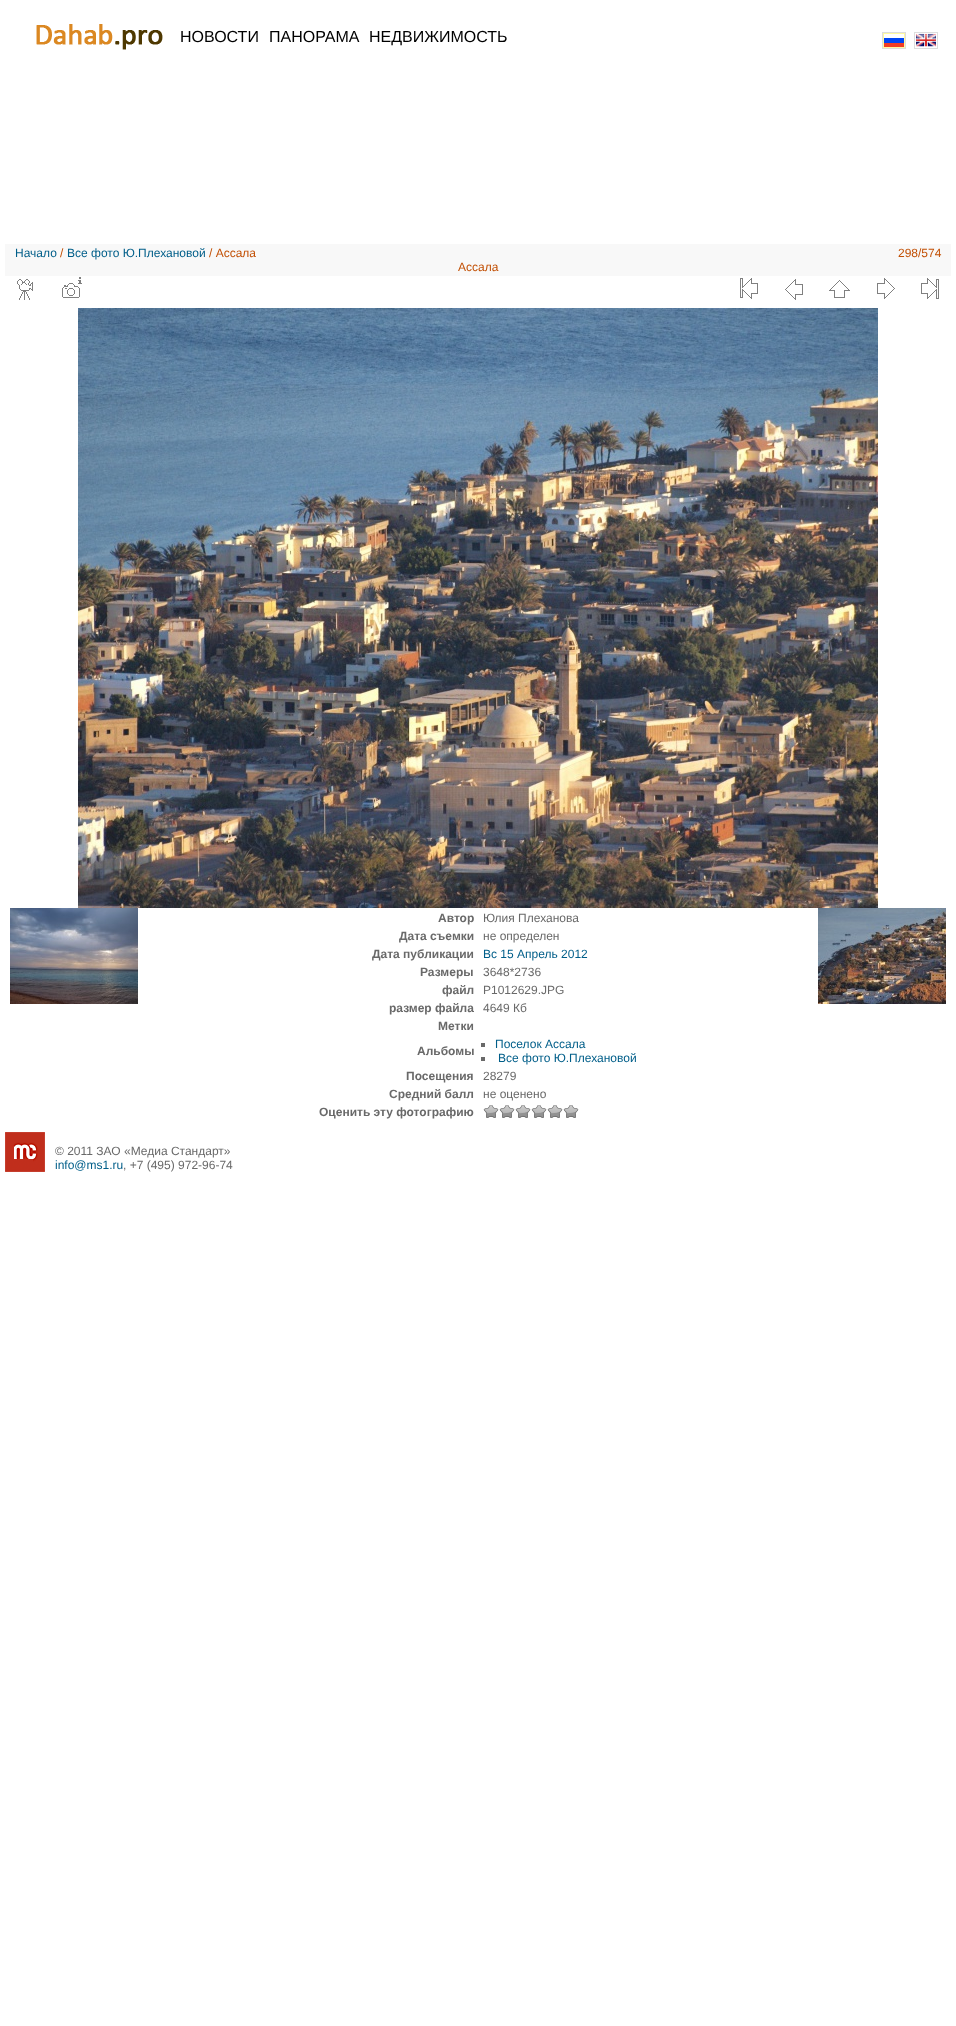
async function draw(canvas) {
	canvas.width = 956;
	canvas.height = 2026;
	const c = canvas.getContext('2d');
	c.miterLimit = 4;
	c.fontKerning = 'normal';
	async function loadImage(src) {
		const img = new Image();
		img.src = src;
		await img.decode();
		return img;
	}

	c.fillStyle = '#fff';
	c.fillRect(0, 0, 956, 2026);
	c.drawImage(await loadImage('img1.png'), 36, 24, 127, 26);
	c.font = '16px Liberation Sans';
	c.fillStyle = '#000';
	for (const [text, x, y] of [
		['НОВОСТИ', 180, 42],
		['ПАНОРАМА', 269, 42],
		['НЕДВИЖИМОСТЬ', 369, 42],
	]) {
		c.fillText(text, x, y);
	}
	c.strokeStyle = '#ddd';
	c.strokeRect(882.5, 32.5, 23, 16);
	c.drawImage(await loadImage('img2.png'), 883, 33, 22, 15);
	c.strokeRect(914.5, 32.5, 23, 16);
	c.drawImage(await loadImage('img3.png'), 916, 33, 20, 14);
	c.fillStyle = '#f8f8f8';
	c.fillRect(5, 244, 946, 32);
	c.font = '12px Liberation Sans';
	c.fillStyle = '#005e89';
	c.fillText('Начало', 15, 257);
	c.fillStyle = '#c25005';
	c.fillText('/', 60, 257);
	c.fillStyle = '#005e89';
	c.fillText('Все фото Ю.Плехановой', 67, 257);
	c.fillStyle = '#c25005';
	for (const [text, x, y] of [
		['/ Ассала', 209, 257],
		['298/574', 898, 257],
		['Ассала', 458, 271],
	]) {
		c.fillText(text, x, y);
	}
	c.drawImage(await loadImage('img4.png'), 17, 279, 16, 21);
	c.drawImage(await loadImage('img5.png'), 62, 277, 20, 21);
	c.drawImage(await loadImage('img6.png'), 740, 278, 18, 21);
	c.drawImage(await loadImage('img7.png'), 785, 279, 18, 21);
	c.drawImage(await loadImage('img8.png'), 829, 280, 21, 18);
	c.drawImage(await loadImage('img9.png'), 877, 278, 18, 21);
	c.drawImage(await loadImage('img10.png'), 921, 278, 18, 21);
	c.drawImage(await loadImage('img11.png'), 78, 308, 800, 600);
	c.drawImage(await loadImage('img12.png'), 10, 908, 128, 96);
	c.font = 'bold 12px Liberation Sans';
	c.fillStyle = '#696969';
	c.fillText('Автор', 438, 922);
	c.font = '12px Liberation Sans';
	c.fillText('Юлия Плеханова', 483, 922);
	c.font = 'bold 12px Liberation Sans';
	c.fillText('Дата съемки', 399, 940);
	c.font = '12px Liberation Sans';
	c.fillText('не определен', 483, 940);
	c.font = 'bold 12px Liberation Sans';
	c.fillText('Дата публикации', 372, 958);
	c.font = '12px Liberation Sans';
	c.fillStyle = '#005e89';
	c.fillText('Вс 15 Апрель 2012', 483, 958);
	c.font = 'bold 12px Liberation Sans';
	c.fillStyle = '#696969';
	c.fillText('Размеры', 420, 976);
	c.font = '12px Liberation Sans';
	c.fillText('3648*2736', 483, 976);
	c.font = 'bold 12px Liberation Sans';
	c.fillText('файл', 442, 994);
	c.font = '12px Liberation Sans';
	c.fillText('P1012629.JPG', 483, 994);
	c.font = 'bold 12px Liberation Sans';
	c.fillText('размер файла', 389, 1012);
	c.font = '12px Liberation Sans';
	c.fillText('4649 Кб', 483, 1012);
	c.font = 'bold 12px Liberation Sans';
	c.fillText('Метки', 438, 1030);
	c.fillText('Альбомы', 417, 1055);
	c.fillRect(481, 1043, 4, 4);
	c.font = '12px Liberation Sans';
	c.fillStyle = '#005e89';
	c.fillText('Поселок Ассала', 495, 1048);
	c.fillStyle = '#696969';
	c.fillRect(481, 1057, 4, 4);
	c.fillStyle = '#005e89';
	c.fillText('Все фото Ю.Плехановой', 498, 1062);
	c.font = 'bold 12px Liberation Sans';
	c.fillStyle = '#696969';
	c.fillText('Посещения', 406, 1080);
	c.font = '12px Liberation Sans';
	c.fillText('28279', 483, 1080);
	c.font = 'bold 12px Liberation Sans';
	c.fillText('Средний балл', 389, 1098);
	c.font = '12px Liberation Sans';
	c.fillText('не оценено', 483, 1098);
	c.font = 'bold 12px Liberation Sans';
	c.fillText('Оценить эту фотографию', 319, 1116);
	c.drawImage(await loadImage('img13.png'), 483, 1105, 16, 13);
	c.drawImage(await loadImage('img13.png'), 499, 1105, 16, 13);
	c.drawImage(await loadImage('img13.png'), 515, 1105, 16, 13);
	c.drawImage(await loadImage('img13.png'), 531, 1105, 16, 13);
	c.drawImage(await loadImage('img13.png'), 547, 1105, 16, 13);
	c.drawImage(await loadImage('img13.png'), 563, 1105, 16, 13);
	c.drawImage(await loadImage('img14.png'), 818, 908, 128, 96);
	c.drawImage(await loadImage('img15.png'), 5, 1132, 40, 40);
	c.font = '12px Liberation Sans';
	c.fillText('© 2011 ЗАО «Медиа Стандарт»', 55, 1155);
	c.fillStyle = '#005e89';
	c.fillText('info@ms1.ru', 55, 1169);
	c.fillStyle = '#696969';
	c.fillText(', +7 (495) 972-96-74', 123, 1169);
}

draw(document.querySelector('canvas'));
